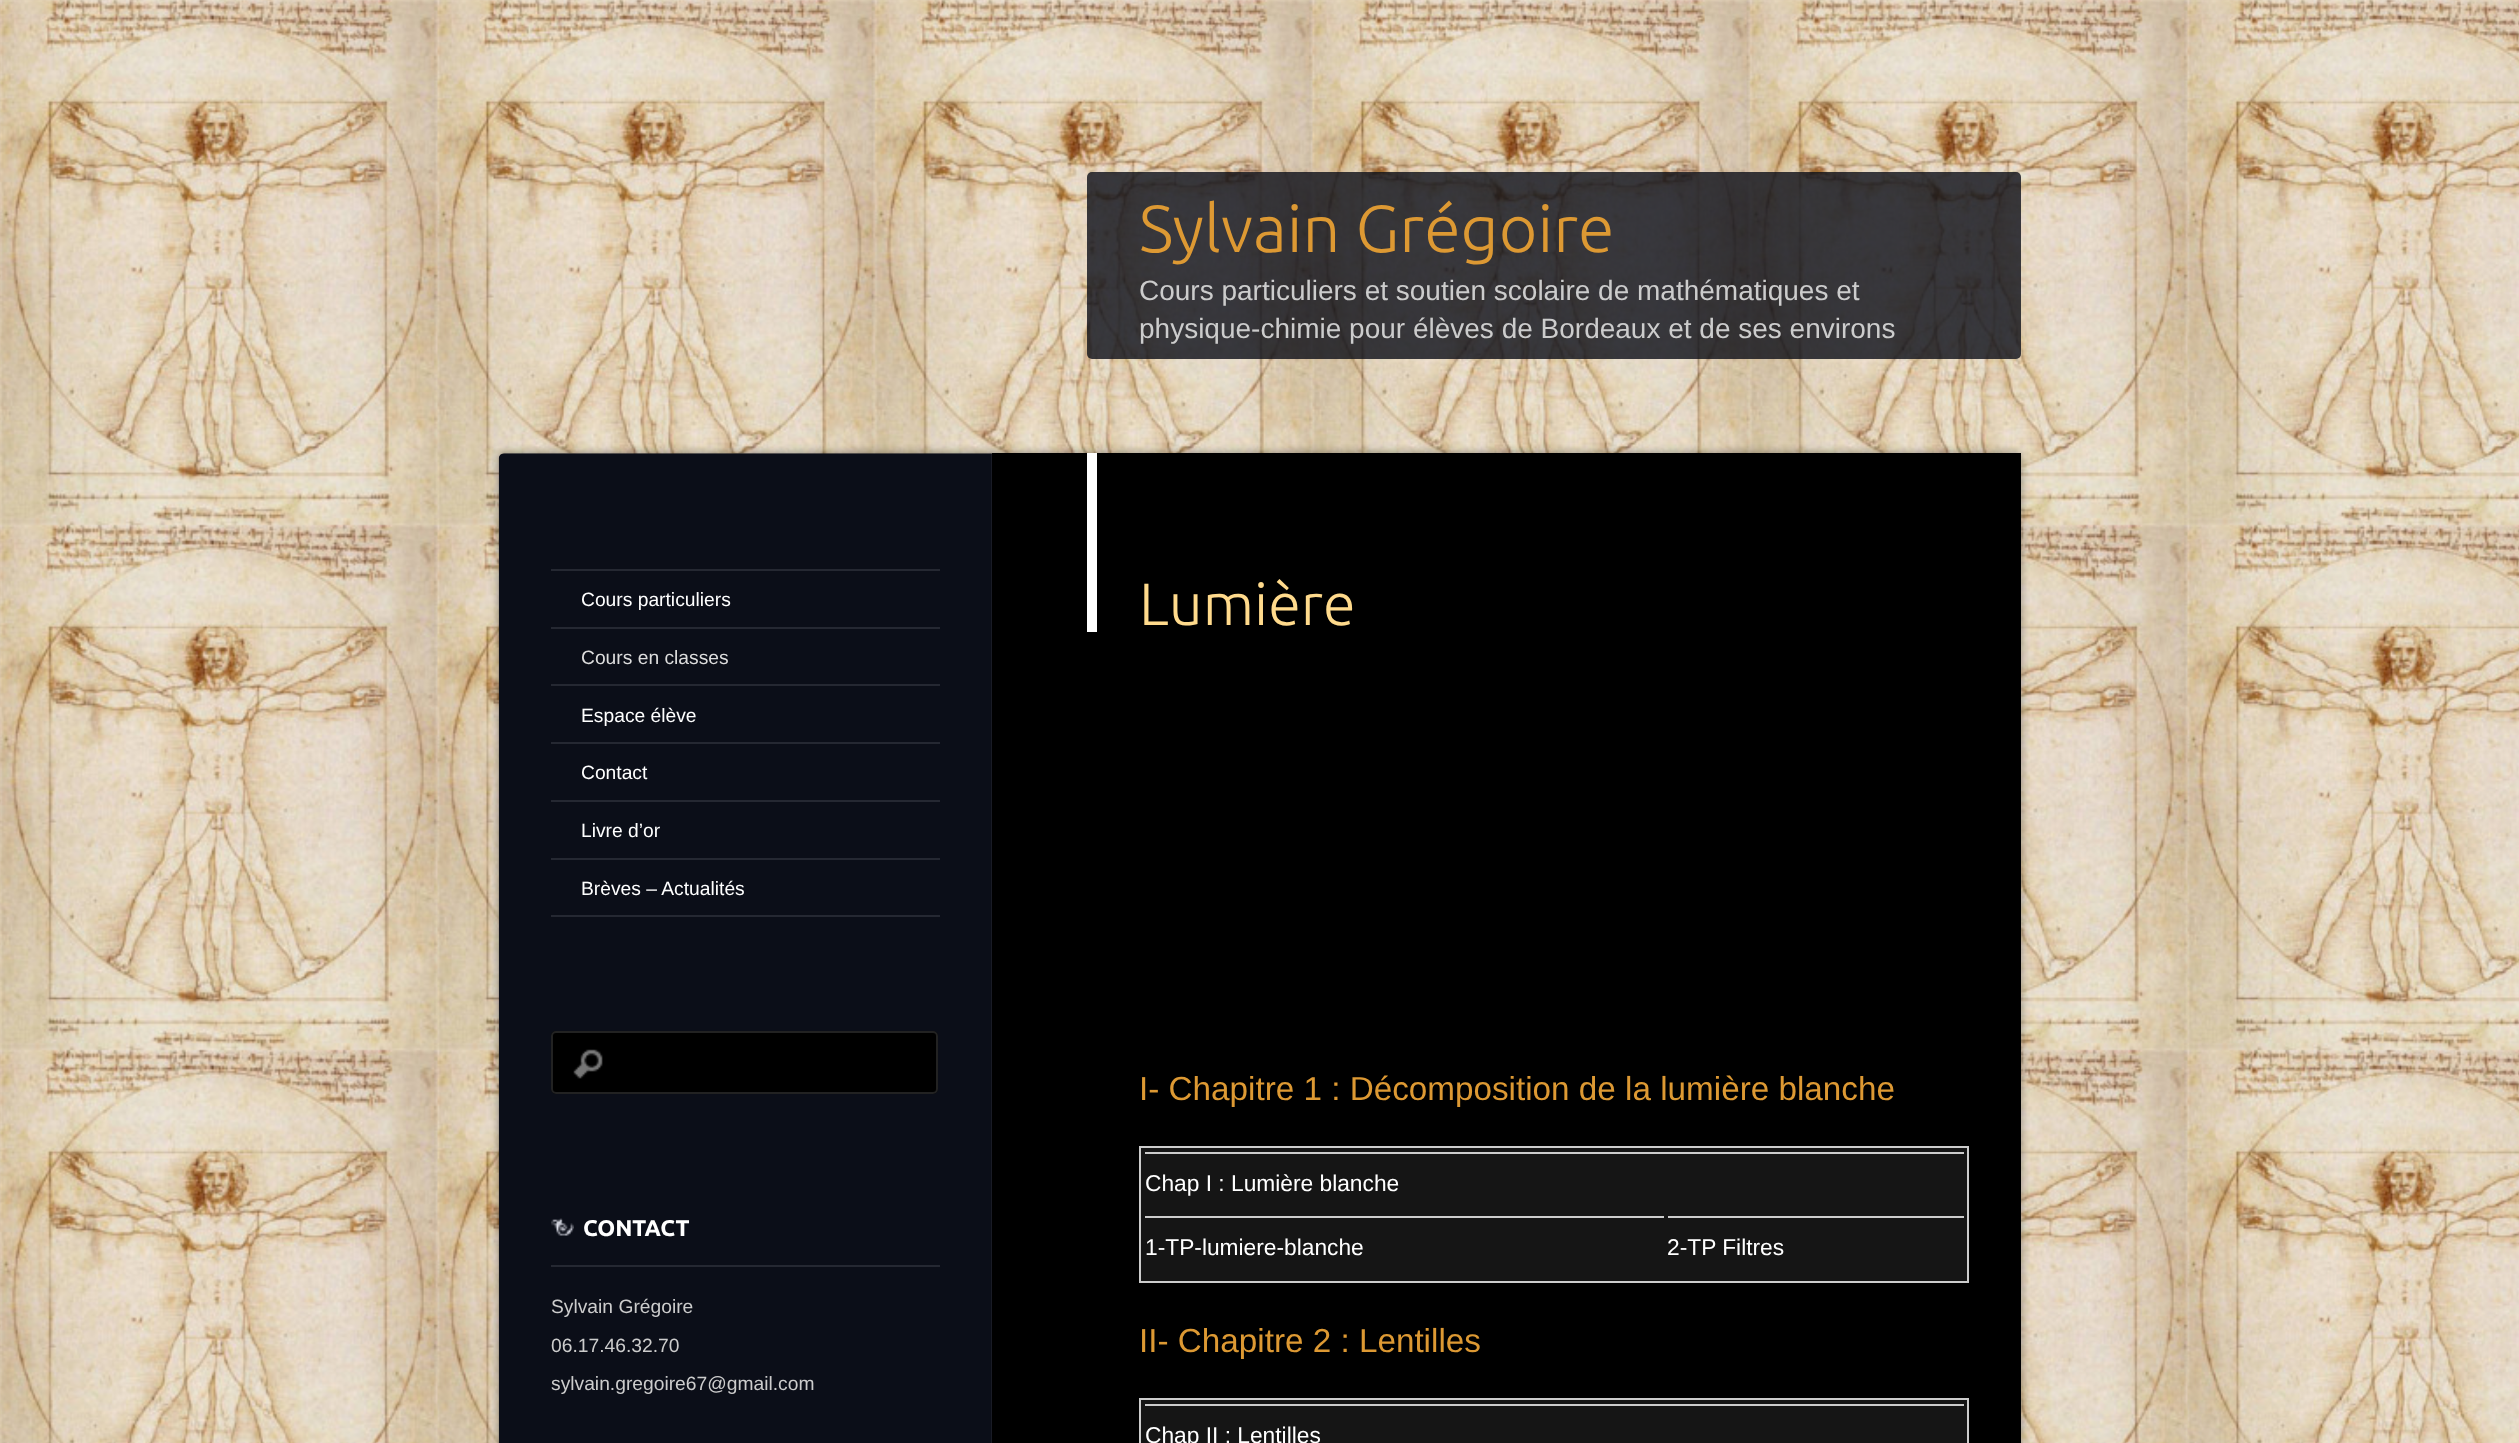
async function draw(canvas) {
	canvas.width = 2519;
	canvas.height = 1443;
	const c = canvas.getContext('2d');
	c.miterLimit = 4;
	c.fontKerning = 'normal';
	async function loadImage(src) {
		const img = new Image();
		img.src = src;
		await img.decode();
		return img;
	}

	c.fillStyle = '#fff';
	c.fillRect(0, 0, 2519, 1443);
	c.drawImage(await loadImage('img1.png'), 0, 0, 2519, 1443);
	c.fillStyle = '#0b0e18cc';
	c.beginPath();
	c.roundRect(1087, 172, 934, 187, 5);
	c.fill();
	c.font = '300 66.5px Ubuntu';
	c.fillStyle = '#d93';
	c.fillText('Sylvain Grégoire', 1139, 252);
	c.font = '28px Liberation Sans';
	c.fillStyle = '#ccc';
	c.fillText('Cours particuliers et soutien scolaire de mathématiques et', 1139, 300);
	c.fillText('physique-chimie pour élèves de Bordeaux et de ses environs', 1139, 338);
	c.fillStyle = '#00000066';
	c.filter = 'blur(5px)';
	c.beginPath();
	c.roundRect(499, 453, 1522, 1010, 5);
	c.fill();
	c.filter = 'none';
	c.drawImage(await loadImage('img2.png'), 498, 453, 1524, 990);
	c.fillStyle = '#252832';
	c.fillRect(551, 569, 389, 2);
	c.fillRect(551, 627, 389, 2);
	c.font = '19.25px Liberation Sans';
	c.fillStyle = '#fff';
	c.fillText('Cours particuliers', 581, 606);
	c.fillStyle = '#252832';
	c.fillRect(551, 684, 389, 2);
	c.fillStyle = '#ddd';
	c.fillText('Cours en classes', 581, 664);
	c.fillStyle = '#252832';
	c.fillRect(551, 742, 389, 2);
	c.fillStyle = '#fff';
	c.fillText('Espace élève', 581, 722);
	c.fillStyle = '#252832';
	c.fillRect(551, 800, 389, 2);
	c.fillStyle = '#fff';
	c.fillText('Contact', 581, 779);
	c.fillStyle = '#252832';
	c.fillRect(551, 858, 389, 2);
	c.fillStyle = '#fff';
	c.fillText('Livre d’or', 581, 837);
	c.fillStyle = '#252832';
	c.fillRect(551, 915, 389, 2);
	c.fillStyle = '#fff';
	c.fillText('Brèves – Actualités', 581, 895);
	c.fillStyle = '#000';
	c.beginPath();
	c.roundRect(551, 1031, 387, 63, 5);
	c.fill();
	c.drawImage(await loadImage('img3.png'), 573, 1049, 30, 30);
	c.beginPath();
	c.roundRect(552, 1032, 385, 61, 4);
	c.strokeStyle = '#222';
	c.lineWidth = 2;
	c.stroke();
	c.drawImage(await loadImage('img4.png'), 551, 1218, 23, 18);
	c.fillStyle = '#252832';
	c.fillRect(551, 1265, 389, 2);
	c.font = 'bold 22.75px Ubuntu';
	c.fillStyle = '#fff';
	c.fillText('CONTACT', 583, 1236);
	c.font = '19.25px Liberation Sans';
	c.fillStyle = '#ccc';
	for (const [text, x, y] of [
		['Sylvain Grégoire', 551, 1313],
		['06.17.46.32.70', 551, 1352],
		['sylvain.gregoire67@gmail.com', 551, 1390],
	]) {
		c.fillText(text, x, y);
	}
	c.fillStyle = '#000';
	c.fillRect(992, 453, 1029, 990);
	c.fillStyle = '#fff';
	c.fillRect(1087, 453, 10, 179);
	c.font = '300 59.5px Ubuntu';
	c.fillStyle = '#ffda8c';
	c.fillText('Lumière', 1139, 625);
	c.font = '33.25px Liberation Sans';
	c.fillStyle = '#d93';
	c.fillText('I- Chapitre 1 : Décomposition de la lumière blanche', 1139, 1100);
	c.fillStyle = '#151515';
	c.beginPath();
	c.rect(1140, 1147, 828, 135);
	c.fill();
	c.strokeStyle = '#ccc';
	c.stroke();
	c.fillStyle = '#ccc';
	c.fillRect(1145, 1152, 819, 2);
	c.font = '22.75px Liberation Sans';
	c.fillStyle = '#fff';
	c.fillText('Chap I : Lumière blanche', 1145, 1191);
	c.fillStyle = '#ccc';
	c.fillRect(1145, 1216, 519, 2);
	c.fillStyle = '#fff';
	c.fillText('1-TP-lumiere-blanche', 1145, 1255);
	c.fillStyle = '#ccc';
	c.fillRect(1668, 1216, 296, 2);
	c.fillStyle = '#fff';
	c.fillText('2-TP Filtres', 1667, 1255);
	c.font = '33.25px Liberation Sans';
	c.fillStyle = '#d93';
	c.fillText('II- Chapitre 2 : Lentilles', 1139, 1352);
	c.fillStyle = '#151515';
	c.beginPath();
	c.rect(1140, 1399, 828, 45);
	c.fill();
	c.stroke();
	c.fillStyle = '#ccc';
	c.fillRect(1145, 1404, 819, 2);
	c.font = '22.75px Liberation Sans';
	c.fillStyle = '#fff';
	c.fillText('Chap II : Lentilles', 1145, 1443);
}

draw(document.querySelector('canvas'));
